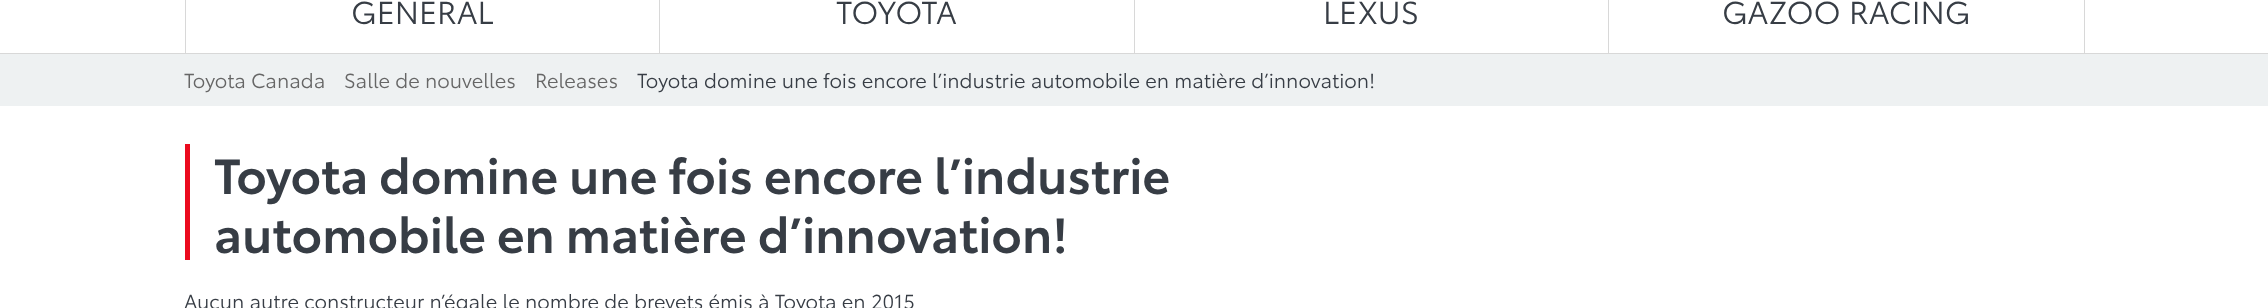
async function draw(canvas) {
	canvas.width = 2268;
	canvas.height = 308;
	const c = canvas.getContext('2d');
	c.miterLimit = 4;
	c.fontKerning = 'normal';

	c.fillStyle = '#fff';
	c.fillRect(0, 0, 2268, 308);
	for (const [x, y, w, h, color] of [
		[0, 53, 2268, 1, '#d8d8d8'],
		[2084, 0, 1, 53, '#d8d8d8'],
		[185, 0, 1, 53, '#d8d8d8'],
		[659, 0, 1, 53, '#d8d8d8'],
	]) {
		c.fillStyle = color;
		c.fillRect(x, y, w, h);
	}
	c.font = '31.25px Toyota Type';
	c.fillStyle = '#373d45';
	c.fillText('GÉNÉRAL', 351, 24);
	c.fillStyle = '#d8d8d8';
	c.fillRect(1134, 0, 1, 53);
	c.fillStyle = '#373d45';
	c.fillText('TOYOTA', 836, 24);
	c.fillStyle = '#d8d8d8';
	c.fillRect(1608, 0, 1, 53);
	c.fillStyle = '#373d45';
	c.fillText('LEXUS', 1323, 24);
	c.fillText('GAZOO RACING', 1722, 24);
	c.fillStyle = '#eef1f2';
	c.fillRect(0, 54, 2268, 52);
	c.font = '20px Toyota Type';
	c.fillStyle = '#666';
	for (const [text, x, y] of [
		['Toyota Canada', 184, 88],
		['Salle de nouvelles', 344, 88],
		['Releases', 535, 88],
	]) {
		c.fillText(text, x, y);
	}
	c.fillStyle = '#373d45';
	c.fillText('Toyota domine une fois encore l’industrie automobile en matière d’innovation!', 637, 88);
	c.fillStyle = '#eb0a1e';
	c.fillRect(185, 144, 5, 116);
	c.font = '600 48.75px Toyota Type';
	c.fillStyle = '#373d45';
	c.fillText('Toyota domine une fois encore l’industrie', 214, 194);
	c.fillText('automobile en matière d’innovation!', 214, 253);
	c.font = '20px Toyota Type';
	c.fillText('Aucun autre constructeur n’égale le nombre de brevets émis à Toyota en 2015', 184, 309);
}

draw(document.querySelector('canvas'));
